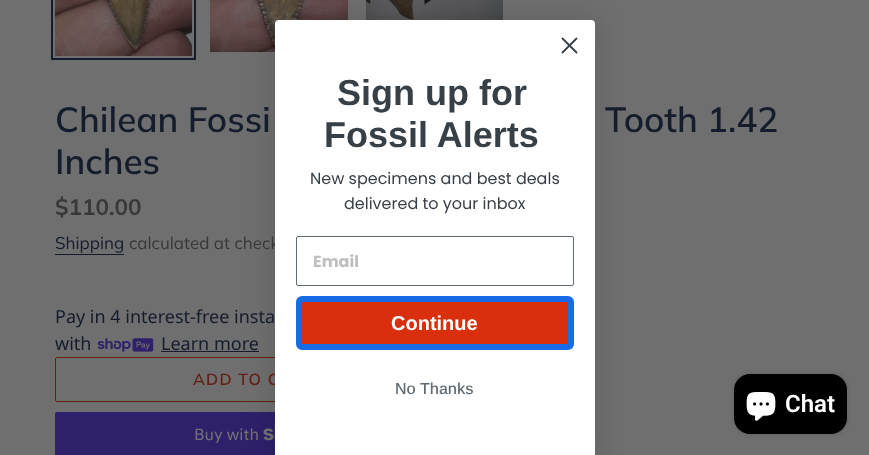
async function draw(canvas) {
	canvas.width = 869;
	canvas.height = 455;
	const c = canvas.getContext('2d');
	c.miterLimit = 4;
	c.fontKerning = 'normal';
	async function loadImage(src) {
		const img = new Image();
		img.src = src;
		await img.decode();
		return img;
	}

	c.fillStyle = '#6f6f6f';
	c.fillRect(0, 0, 869, 455);
	c.drawImage(await loadImage('img2.png'), 210, 0, 138, 52);
	c.drawImage(await loadImage('img3.png'), 366, 0, 137, 20);
	c.fillStyle = '#151c2c';
	c.fillRect(161, 351, 98, 1);
	c.beginPath();
	c.roundRect(55.5, 357.5, 399, 44, 1.5);
	c.strokeStyle = '#631f11';
	c.stroke();
	c.fillStyle = '#2e206a';
	c.beginPath();
	c.roundRect(55, 412, 400, 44, 2);
	c.fill();
	c.drawImage(await loadImage('img5.png'), 263, 424, 12, 17);
	c.fillStyle = '#00000026';
	c.filter = 'blur(15px)';
	c.beginPath();
	c.roundRect(275, 20, 320, 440, 4);
	c.fill();
	c.filter = 'none';
	c.font = '17px Muli';
	c.fillStyle = '#383838';
	c.fillText('calculated at check', 129, 249);
	c.letterSpacing = '1.25px';
	c.font = '600 16px Muli';
	c.fillStyle = '#631f11';
	c.fillText('ADD TO C', 193, 385);
	c.fillStyle = '#fff';
	c.beginPath();
	c.roundRect(275, 20, 320, 435, [4, 4, 0, 0]);
	c.fill();
	c.beginPath();
	c.moveTo(562.5, 38.5);
	c.lineTo(576.5, 52.5);
	c.moveTo(562.5, 52.5);
	c.lineTo(576.5, 38.5);
	c.closePath();
	c.strokeStyle = '#373f47';
	c.lineWidth = 1.8;
	c.lineCap = 'round';
	c.lineJoin = 'round';
	c.stroke();
	c.letterSpacing = '0px';
	c.font = 'bold 36px Arimo';
	c.fillStyle = '#373f47';
	c.fillText('Sign up for', 337, 105);
	c.fillText('Fossil Alerts', 324, 147);
	c.font = '16px Poppins';
	c.fillText('New specimens and best deals', 310, 184);
	c.fillText('delivered to your inbox', 344, 209);
	c.beginPath();
	c.roundRect(296.5, 236.5, 277, 49, 1.5);
	c.strokeStyle = '#606a72';
	c.lineWidth = 1;
	c.lineJoin = 'miter';
	c.stroke();
	c.font = 'bold 16px Poppins';
	c.fillStyle = '#bfbfc0';
	c.fillText('Email', 313, 267);
	c.fillStyle = '#da2f0c';
	c.beginPath();
	c.roundRect(299, 299, 272, 48, 3);
	c.fill();
	c.strokeStyle = '#176be5';
	c.lineWidth = 6;
	c.stroke();
	c.font = 'bold 20px Arimo';
	c.fillStyle = '#fff';
	c.fillText('Continue', 391, 330);
	c.font = '500 16px Arimo';
	c.fillStyle = '#606a72';
	c.fillText('No Thanks', 395, 394);
	c.strokeStyle = '#151c2c';
	c.lineWidth = 2;
	c.strokeRect(52, -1, 143, 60);
	c.drawImage(await loadImage('img1.png'), 55, 0, 137, 56);
	c.font = '600 35px Muli';
	c.fillStyle = '#151c2c';
	for (const [text, x, y] of [
		['Chilean Fossi', 55, 132],
		['Tooth 1.42', 605, 132],
		['Inches', 55, 174],
	]) {
		c.fillText(text, x, y);
	}
	c.font = 'bold 22.5px Muli';
	c.fillStyle = '#383838';
	c.fillText('$110.00', 55, 215);
	c.font = '17px Muli';
	c.fillStyle = '#151c2c';
	c.fillText('Shipping', 55, 249);
	c.fillRect(55, 254, 69, 1);
	c.font = '18px Noto Sans';
	c.fillText('Pay in 4 interest-free insta', 55, 323);
	c.fillText('with', 55, 350);
	c.drawImage(await loadImage('img4.png'), 97, 338, 57, 14);
	c.fillText('Learn more', 161, 350);
	c.font = '16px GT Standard';
	c.fillStyle = '#727272';
	c.fillText('Buy with', 194, 440);
	c.fillStyle = '#00000026';
	c.filter = 'blur(2.5px)';
	c.beginPath();
	c.roundRect(734, 374, 113, 60, 16);
	c.fill();
	c.filter = 'none';
	c.fillStyle = '#000';
	c.beginPath();
	c.roundRect(734, 374, 113, 60, 16);
	c.fill();
	c.drawImage(await loadImage('img6.png'), 746, 392, 30, 29);
	c.font = '600 24px Roboto';
	c.fillStyle = '#fff';
	c.fillText('Chat', 785, 412);
}

draw(document.querySelector('canvas'));
